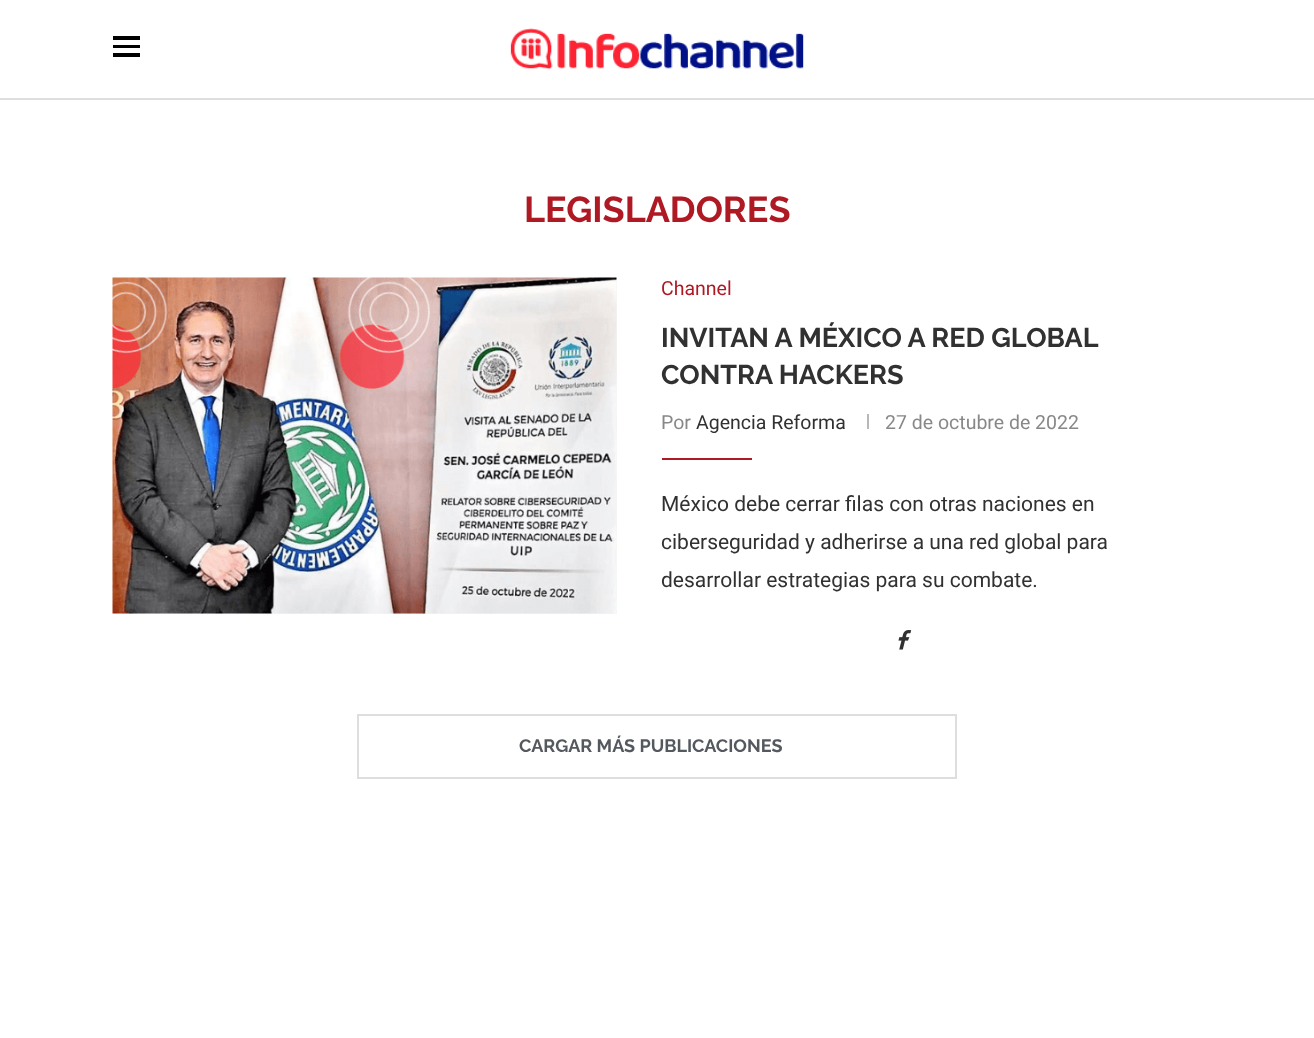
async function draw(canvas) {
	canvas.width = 1314;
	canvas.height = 1038;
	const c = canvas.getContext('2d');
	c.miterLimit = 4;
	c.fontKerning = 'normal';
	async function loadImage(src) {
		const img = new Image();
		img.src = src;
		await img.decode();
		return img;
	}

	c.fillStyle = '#fff';
	c.fillRect(0, 0, 1314, 1038);
	for (const [x, y, w, h, color] of [
		[0, 98, 1314, 2, '#dedede'],
		[113, 36, 27, 4, '#000'],
		[113, 45, 27, 3, '#000'],
		[113, 53, 27, 4, '#000'],
	]) {
		c.fillStyle = color;
		c.fillRect(x, y, w, h);
	}
	c.drawImage(await loadImage('img1.png'), 510, 28, 294, 42);
	c.font = 'bold 36px Raleway';
	c.fillStyle = '#ae1923';
	c.fillText('LEGISLADORES', 524, 222);
	c.fillStyle = '#f5f5f5';
	c.fillRect(113, 278, 504, 336);
	c.drawImage(await loadImage('img2.png'), 112, 277, 505, 337);
	c.font = '19.5px Roboto';
	c.fillStyle = '#ae1923';
	c.fillText('Channel', 661, 295);
	c.font = 'bold 27px Raleway';
	c.fillStyle = '#313131';
	c.fillText('INVITAN A MÉXICO A RED GLOBAL', 661, 347);
	c.fillText('CONTRA HACKERS', 661, 384);
	c.font = '19.5px Roboto';
	c.fillStyle = '#888';
	c.fillText('Por', 661, 429);
	c.fillStyle = '#313131';
	c.fillText('Agencia Reforma', 696, 429);
	c.fillStyle = '#b8b8b8';
	c.fillRect(867, 414, 2, 15);
	c.fillStyle = '#888';
	c.fillText('27 de octubre de 2022', 885, 429);
	c.fillStyle = '#ae1923';
	c.fillRect(662, 458, 90, 2);
	c.font = '21px Roboto';
	c.fillStyle = '#313131';
	for (const [text, x, y] of [
		['México debe cerrar filas con otras naciones en', 661, 511],
		['ciberseguridad y adherirse a una red global para', 661, 549],
		['desarrollar estrategias para su combate.', 661, 587],
	]) {
		c.fillText(text, x, y);
	}
	c.drawImage(await loadImage('img3.png'), 898, 630, 14, 20);
	c.strokeStyle = '#dedede';
	c.lineWidth = 2;
	c.strokeRect(358, 715, 598, 63);
	c.font = 'bold 18px Raleway';
	c.fillStyle = '#54595f';
	c.fillText('CARGAR MÁS PUBLICACIONES', 519, 752);
}

draw(document.querySelector('canvas'));
